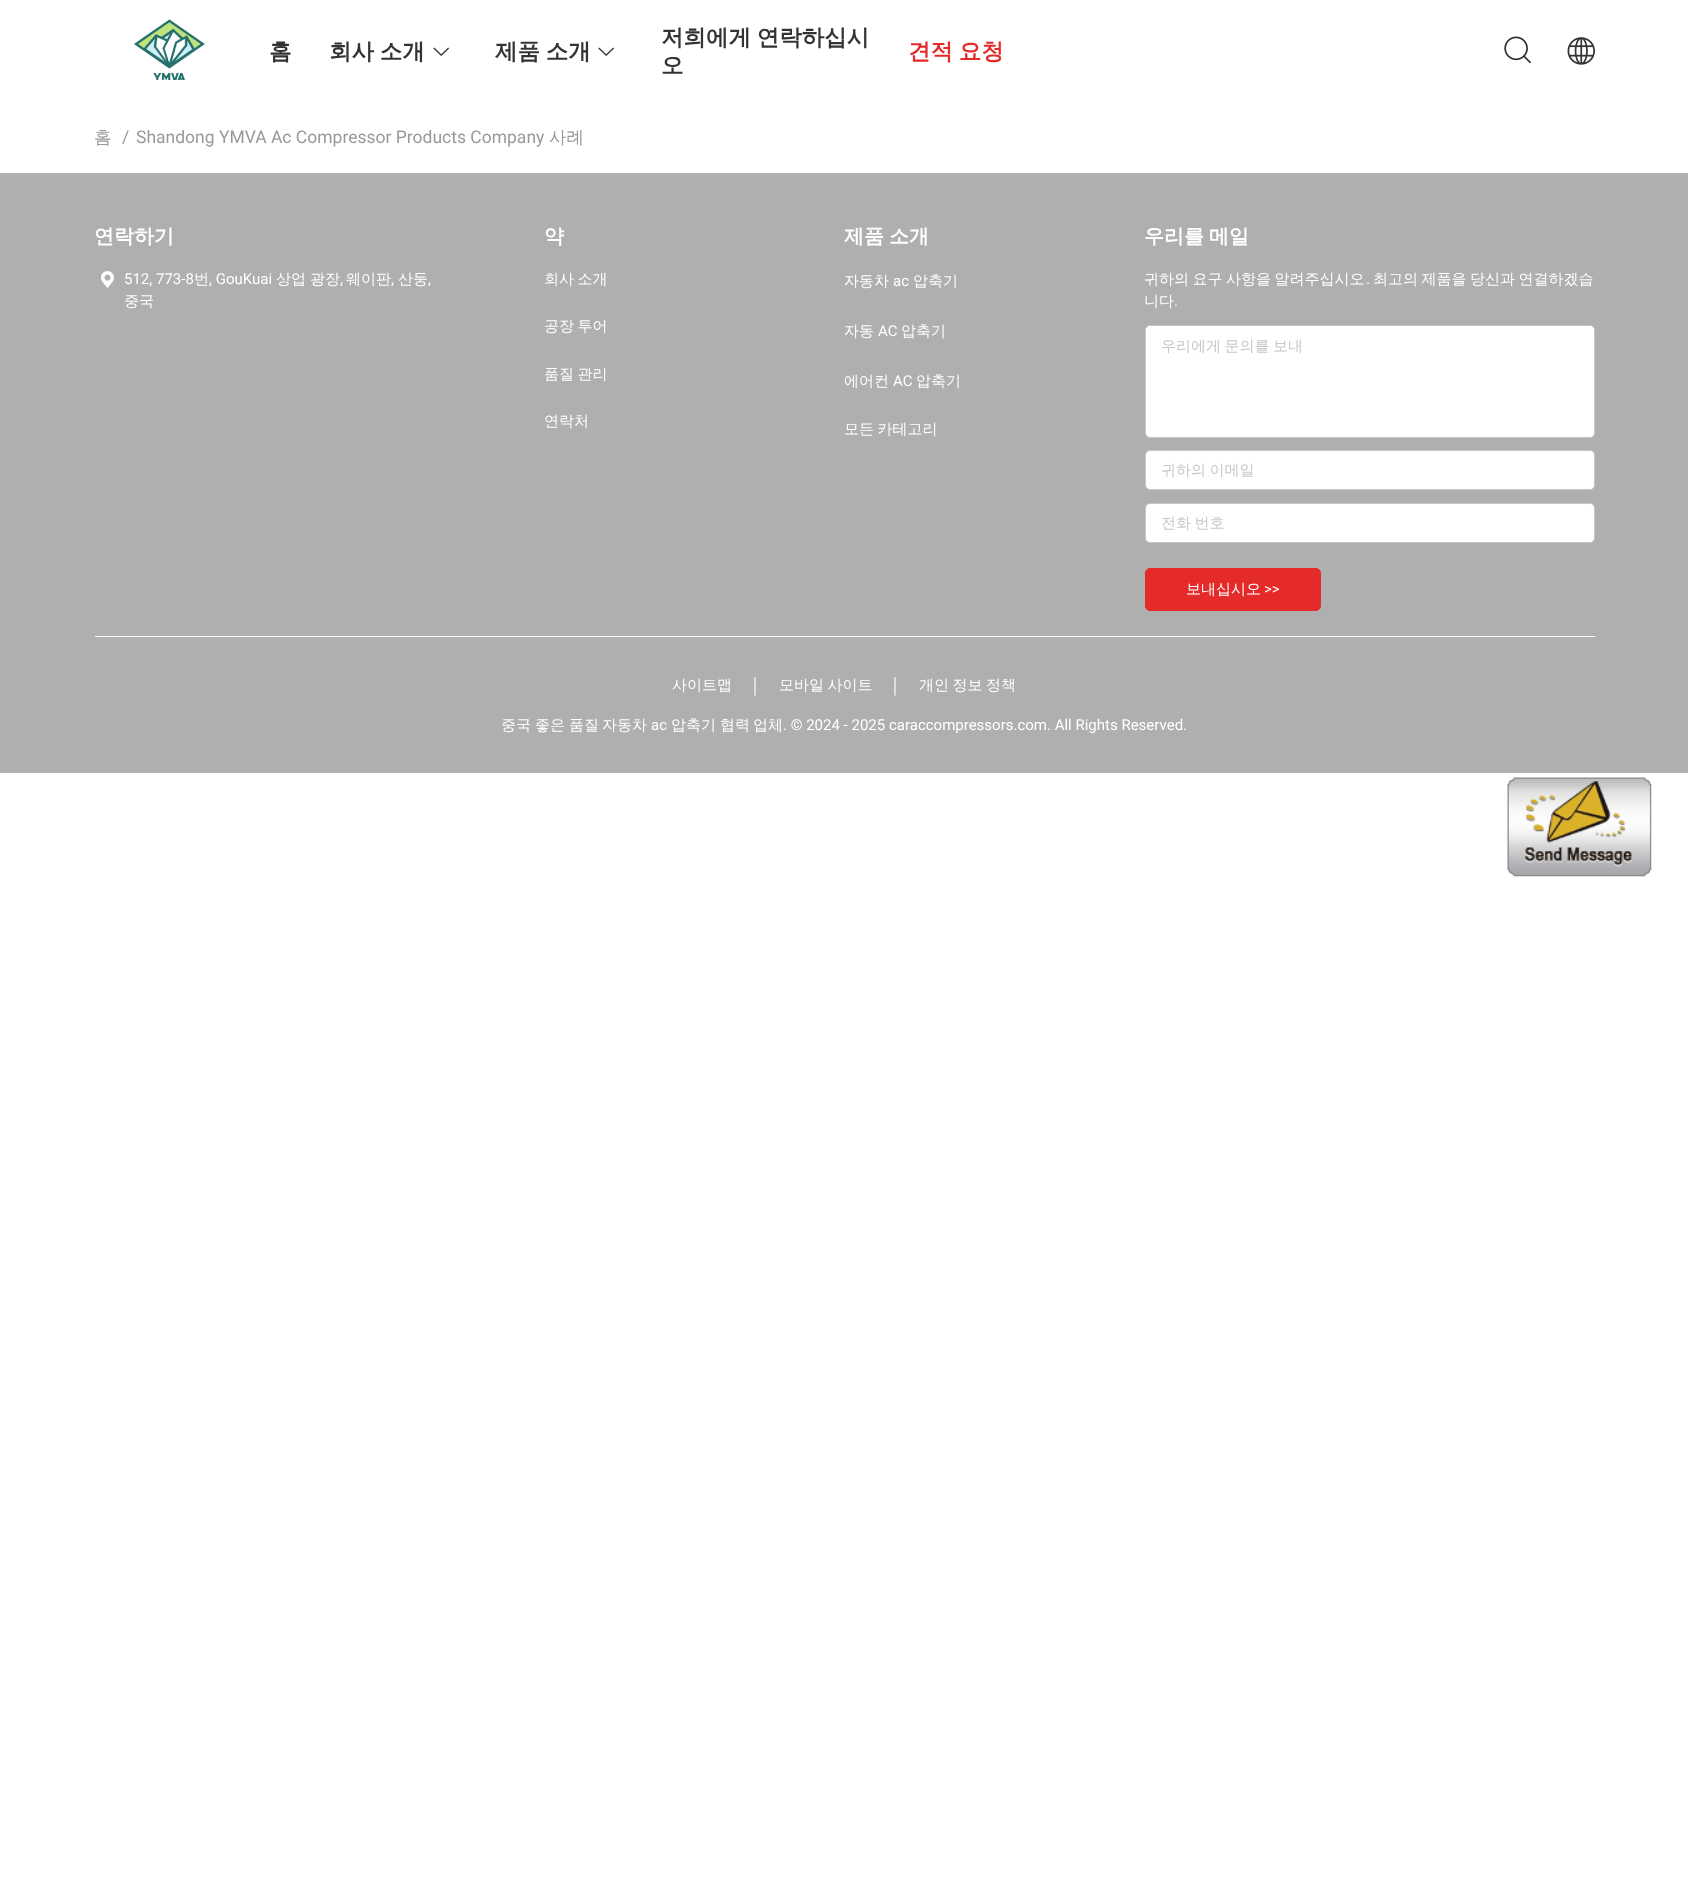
async function draw(canvas) {
	canvas.width = 1688;
	canvas.height = 1902;
	const c = canvas.getContext('2d');
	c.miterLimit = 4;
	c.fontKerning = 'normal';
	async function loadImage(src) {
		const img = new Image();
		img.src = src;
		await img.decode();
		return img;
	}

	c.fillStyle = '#fff';
	c.fillRect(0, 0, 1688, 1902);
	c.drawImage(await loadImage('img1.png'), 134, 19, 71, 61);
	c.font = 'bold 22.5px WenQuanYi Zen Hei';
	c.fillStyle = '#333';
	c.fillText('홈', 269, 59);
	c.wordSpacing = '-1px';
	c.fillText('회사 소개', 329, 59);
	c.drawImage(await loadImage('img2.png'), 433, 47, 17, 9);
	c.fillText('제품 소개', 495, 59);
	c.drawImage(await loadImage('img2.png'), 598, 47, 17, 9);
	c.fillText('저희에게 연락하십시', 661, 45);
	c.wordSpacing = '0px';
	c.fillText('오', 661, 73);
	c.wordSpacing = '-1px';
	c.fillStyle = '#e52a2a';
	c.fillText('견적 요청', 908, 59);
	c.drawImage(await loadImage('img3.png'), 1504, 36, 27, 28);
	c.drawImage(await loadImage('img4.png'), 1567, 37, 28, 28);
	c.wordSpacing = '0px';
	c.font = '500 17.5px WenQuanYi Zen Hei';
	c.fillStyle = '#999';
	c.fillText('홈', 94, 143);
	c.font = '17.5px Roboto';
	c.fillText('/', 122, 143);
	c.fillText('Shandong YMVA Ac Compressor Products Company', 136, 143);
	c.font = '500 17.5px WenQuanYi Zen Hei';
	c.fillText('사례', 549, 143);
	c.fillStyle = '#afafaf';
	c.fillRect(0, 173, 1688, 600);
	c.font = 'bold 20px WenQuanYi Zen Hei';
	c.fillStyle = '#fff';
	c.fillText('연락하기', 94, 243);
	c.drawImage(await loadImage('img5.png'), 101, 271, 13, 17);
	c.font = '15px Roboto';
	c.fillText('512, 773-8', 124, 284);
	c.font = '500 15px WenQuanYi Zen Hei';
	c.fillText('번', 194, 284);
	c.font = '15px Roboto';
	c.fillText(', GouKuai', 209, 284);
	c.font = '500 15px WenQuanYi Zen Hei';
	c.fillText('상업', 276, 284);
	c.fillText('광장', 310, 284);
	c.font = '15px Roboto';
	c.fillText(',', 340, 284);
	c.font = '500 15px WenQuanYi Zen Hei';
	c.fillText('웨이판', 346, 284);
	c.font = '15px Roboto';
	c.fillText(',', 391, 284);
	c.font = '500 15px WenQuanYi Zen Hei';
	c.fillText('산둥', 398, 284);
	c.font = '15px Roboto';
	c.fillText(',', 428, 284);
	c.font = '500 15px WenQuanYi Zen Hei';
	c.fillText('중국', 124, 306);
	c.font = 'bold 20px WenQuanYi Zen Hei';
	c.fillText('약', 544, 243);
	c.wordSpacing = '-1px';
	c.font = '500 15px WenQuanYi Zen Hei';
	for (const [text, x, y] of [
		['회사 소개', 544, 284],
		['공장 투어', 544, 331],
		['품질 관리', 544, 379],
	]) {
		c.fillText(text, x, y);
	}
	c.wordSpacing = '0px';
	c.fillText('연락처', 544, 426);
	c.wordSpacing = '-1px';
	c.font = 'bold 20px WenQuanYi Zen Hei';
	c.fillText('제품 소개', 844, 243);
	c.wordSpacing = '0px';
	c.font = '500 15px WenQuanYi Zen Hei';
	c.fillText('자동차', 844, 286);
	c.font = '15px Roboto';
	c.fillText('ac', 893, 286);
	c.font = '500 15px WenQuanYi Zen Hei';
	c.fillText('압축기', 913, 286);
	c.fillText('자동', 844, 336);
	c.font = '15px Roboto';
	c.fillText('AC', 878, 336);
	c.font = '500 15px WenQuanYi Zen Hei';
	c.fillText('압축기', 901, 336);
	c.fillText('에어컨', 844, 386);
	c.font = '15px Roboto';
	c.fillText('AC', 893, 386);
	c.font = '500 15px WenQuanYi Zen Hei';
	c.fillText('압축기', 916, 386);
	c.wordSpacing = '-1px';
	c.fillText('모든 카테고리', 844, 434);
	c.font = 'bold 20px WenQuanYi Zen Hei';
	c.fillText('우리를 메일', 1144, 243);
	c.font = '500 15px WenQuanYi Zen Hei';
	c.fillText('귀하의 요구 사항을 알려주십시오', 1144, 284);
	c.wordSpacing = '0px';
	c.font = '15px Roboto';
	c.fillText('.', 1366, 284);
	c.wordSpacing = '-1px';
	c.font = '500 15px WenQuanYi Zen Hei';
	c.fillText('최고의 제품을 당신과 연결하겠습', 1373, 284);
	c.wordSpacing = '0px';
	c.fillText('니다', 1144, 306);
	c.font = '15px Roboto';
	c.fillText('.', 1174, 306);
	c.beginPath();
	c.roundRect(1145.5, 325.5, 449, 112, 4.5);
	c.fill();
	c.strokeStyle = '#c7c7c7';
	c.stroke();
	c.wordSpacing = '-1px';
	c.font = '500 15px WenQuanYi Zen Hei';
	c.fillStyle = '#c7c7c7';
	c.fillText('우리에게 문의를 보내', 1161, 351);
	c.fillStyle = '#fff';
	c.beginPath();
	c.roundRect(1145.5, 450.5, 449, 39, 4.5);
	c.fill();
	c.stroke();
	c.fillStyle = '#c7c7c7';
	c.fillText('귀하의 이메일', 1161, 475);
	c.fillStyle = '#fff';
	c.beginPath();
	c.roundRect(1145.5, 503.5, 449, 39, 4.5);
	c.fill();
	c.stroke();
	c.fillStyle = '#c7c7c7';
	c.fillText('전화 번호', 1161, 528);
	c.fillStyle = '#e52a2a';
	c.beginPath();
	c.roundRect(1145.5, 568.5, 175, 42, 4.5);
	c.fill();
	c.strokeStyle = '#e52a2a';
	c.stroke();
	c.wordSpacing = '0px';
	c.fillStyle = '#fff';
	c.fillText('보내십시오', 1186, 594);
	c.font = '15px Roboto';
	c.fillText('>>', 1264, 594);
	c.fillRect(95, 636, 1500, 1);
	c.font = '500 15px WenQuanYi Zen Hei';
	c.fillText('사이트맵', 672, 690);
	c.font = '15px Liberation Sans';
	c.fillText('│', 751, 691);
	c.wordSpacing = '-1px';
	c.font = '500 15px WenQuanYi Zen Hei';
	c.fillText('모바일 사이트', 779, 690);
	c.wordSpacing = '0px';
	c.font = '15px Liberation Sans';
	c.fillText('│', 891, 691);
	c.wordSpacing = '-1px';
	c.font = '500 15px WenQuanYi Zen Hei';
	c.fillText('개인 정보 정책', 919, 690);
	c.wordSpacing = '0px';
	for (const [text, x, y] of [
		['중국', 501, 730],
		['좋은', 535, 730],
		['품질', 569, 730],
		['자동차', 602, 730],
	]) {
		c.fillText(text, x, y);
	}
	c.font = '15px Roboto';
	c.fillText('ac', 651, 730);
	c.font = '500 15px WenQuanYi Zen Hei';
	for (const [text, x, y] of [
		['압축기', 671, 730],
		['협력', 720, 730],
		['업체', 753, 730],
	]) {
		c.fillText(text, x, y);
	}
	c.font = '15px Roboto';
	c.fillText('. © 2024 - 2025 caraccompressors.com. All Rights Reserved.', 783, 730);
	c.drawImage(await loadImage('img6.png'), 1507, 777, 145, 100);
}

draw(document.querySelector('canvas'));
